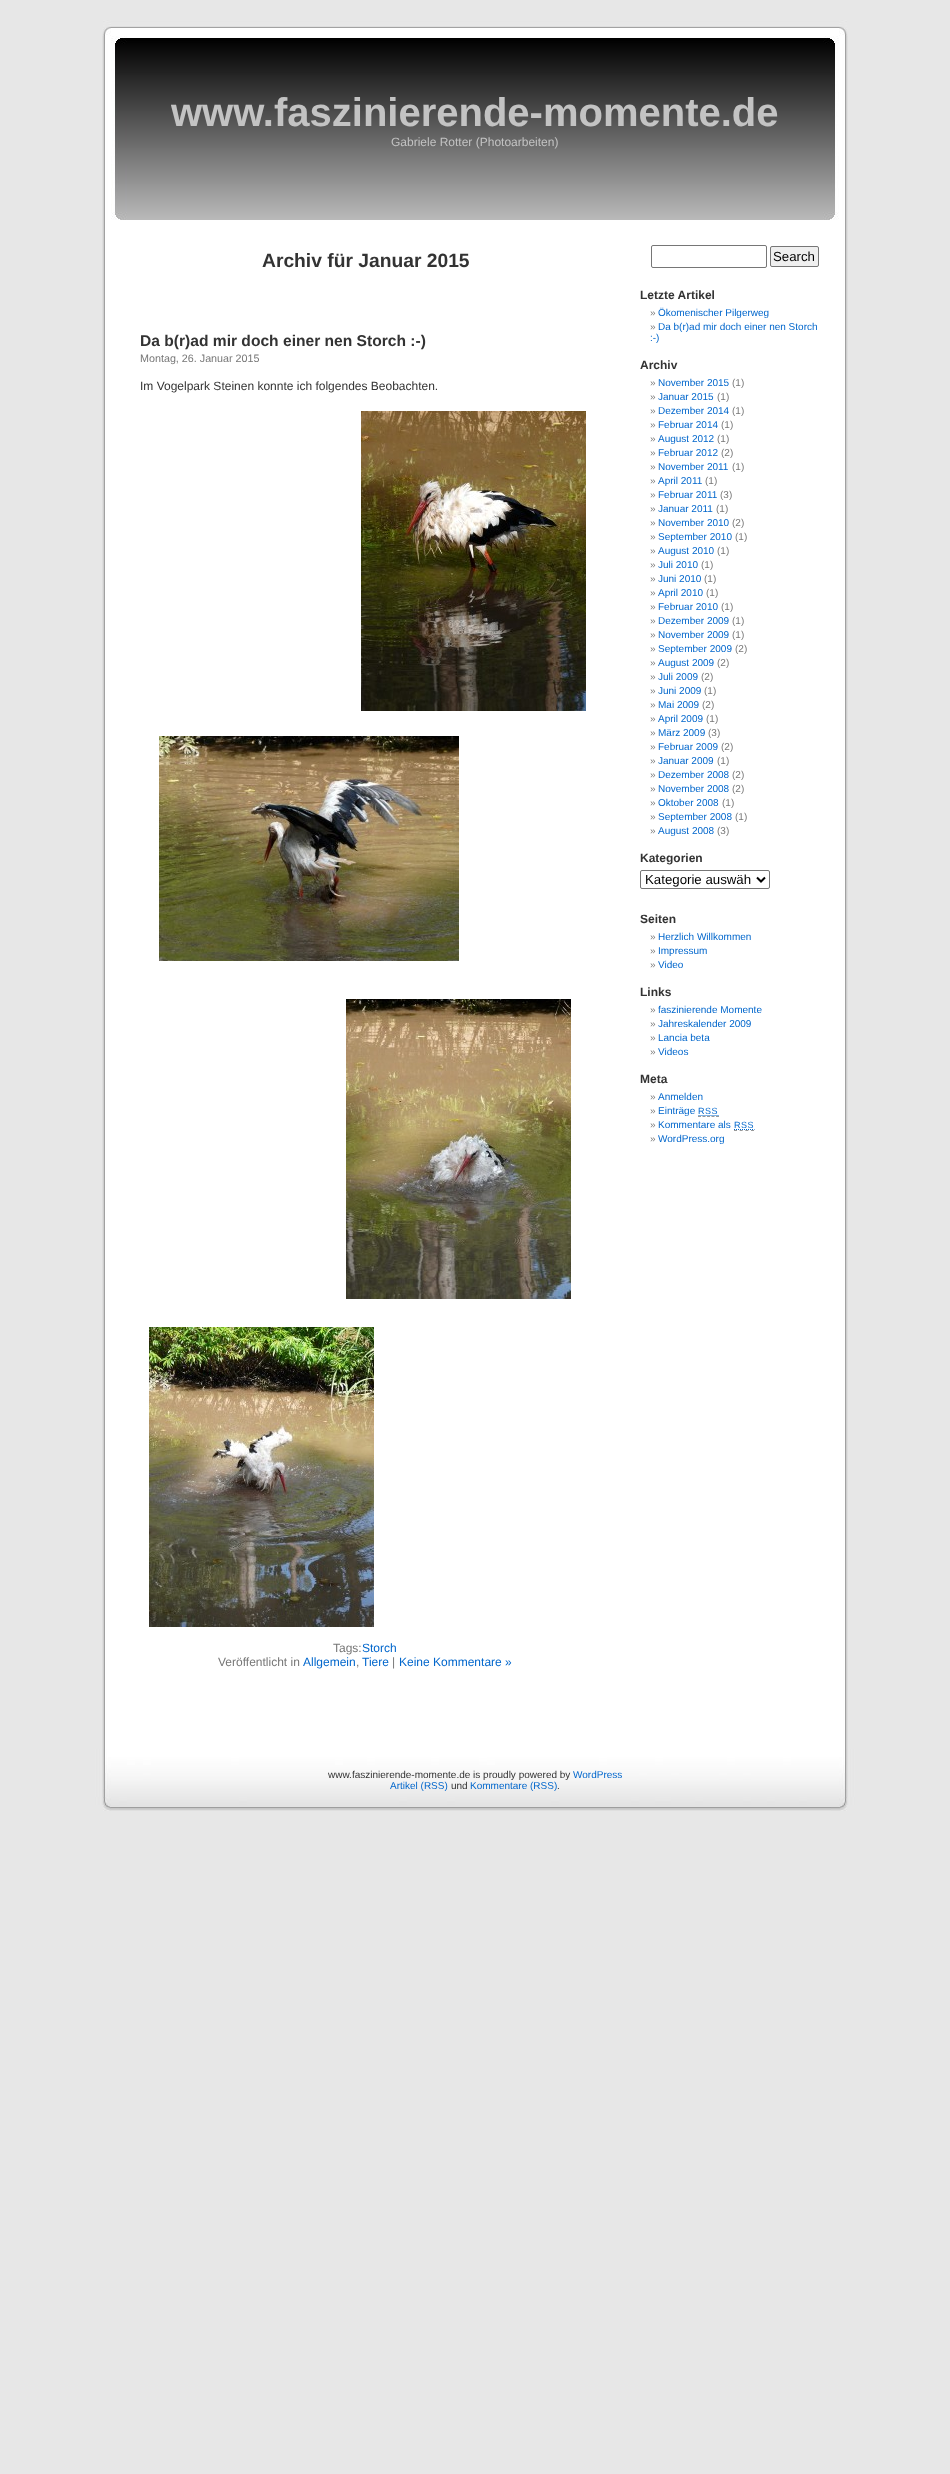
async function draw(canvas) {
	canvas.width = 950;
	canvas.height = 2474;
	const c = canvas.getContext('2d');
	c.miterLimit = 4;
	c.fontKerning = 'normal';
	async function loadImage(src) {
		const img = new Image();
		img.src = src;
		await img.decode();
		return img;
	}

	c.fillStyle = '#e7e7e7';
	c.fillRect(0, 0, 950, 2474);
	c.drawImage(await loadImage('img1.png'), 102, 220, 746, 1529);
	c.drawImage(await loadImage('img2.png'), 102, 20, 746, 200);
	c.font = 'bold 40px Liberation Sans';
	c.fillStyle = '#c3c3c3';
	c.fillText('www.faszinierende-momente.de', 171, 126);
	c.font = '12px Liberation Sans';
	c.fillText('Gabriele Rotter (Photoarbeiten)', 391, 146);
	c.font = 'bold 19.25px Liberation Sans';
	c.fillStyle = '#333';
	c.fillText('Archiv für Januar 2015', 262, 267);
	c.font = 'bold 15.6px Liberation Sans';
	c.fillText('Da b(r)ad mir doch einer nen Storch :-)', 140, 346);
	c.font = '10.75px Liberation Sans';
	c.fillStyle = '#777';
	c.fillText('Montag, 26. Januar 2015', 140, 362);
	c.font = '12px Liberation Sans';
	c.fillStyle = '#333';
	c.fillText('Im Vogelpark Steinen konnte ich folgendes Beobachten.', 140, 390);
	c.drawImage(await loadImage('img3.png'), 361, 411, 225, 300);
	c.drawImage(await loadImage('img4.png'), 159, 736, 300, 225);
	c.drawImage(await loadImage('img5.png'), 346, 999, 225, 300);
	c.drawImage(await loadImage('img6.png'), 149, 1327, 225, 300);
	c.fillStyle = '#777';
	c.fillText('Tags:', 333, 1652);
	c.fillStyle = '#06c';
	c.fillText('Storch', 362, 1652);
	c.fillStyle = '#777';
	c.fillText('Veröffentlicht in', 218, 1666);
	c.fillStyle = '#06c';
	c.fillText('Allgemein', 303, 1666);
	c.fillStyle = '#777';
	c.fillText(',', 356, 1666);
	c.fillStyle = '#06c';
	c.fillText('Tiere', 362, 1666);
	c.fillStyle = '#777';
	c.fillText('|', 392, 1666);
	c.fillStyle = '#06c';
	c.fillText('Keine Kommentare »', 399, 1666);
	c.beginPath();
	c.roundRect(651.5, 245.5, 115, 22, 1.5);
	c.strokeStyle = '#767676';
	c.stroke();
	c.fillStyle = '#efefef';
	c.beginPath();
	c.roundRect(770.5, 246.5, 48, 20, 1.5);
	c.fill();
	c.stroke();
	c.font = '13.25px Liberation Sans';
	c.fillStyle = '#000';
	c.fillText('Search', 773, 261);
	c.font = 'bold 12px Liberation Sans';
	c.fillStyle = '#333';
	c.fillText('Letzte Artikel', 640, 299);
	c.font = '10px Liberation Sans';
	c.fillStyle = '#777';
	c.fillText('»', 650, 316);
	c.fillStyle = '#06c';
	c.fillText('Ökomenischer Pilgerweg', 658, 316);
	c.fillStyle = '#777';
	c.fillText('»', 650, 330);
	c.fillStyle = '#06c';
	c.fillText('Da b(r)ad mir doch einer nen Storch', 658, 330);
	c.fillText(':-)', 650, 341);
	c.font = 'bold 12px Liberation Sans';
	c.fillStyle = '#333';
	c.fillText('Archiv', 640, 369);
	c.font = '10px Liberation Sans';
	c.fillStyle = '#777';
	c.fillText('»', 650, 386);
	c.fillStyle = '#06c';
	c.fillText('November 2015', 658, 386);
	c.fillStyle = '#777';
	c.fillText('(1)', 732, 386);
	c.fillText('»', 650, 400);
	c.fillStyle = '#06c';
	c.fillText('Januar 2015', 658, 400);
	c.fillStyle = '#777';
	c.fillText('(1)', 717, 400);
	c.fillText('»', 650, 414);
	c.fillStyle = '#06c';
	c.fillText('Dezember 2014', 658, 414);
	c.fillStyle = '#777';
	c.fillText('(1)', 732, 414);
	c.fillText('»', 650, 428);
	c.fillStyle = '#06c';
	c.fillText('Februar 2014', 658, 428);
	c.fillStyle = '#777';
	c.fillText('(1)', 721, 428);
	c.fillText('»', 650, 442);
	c.fillStyle = '#06c';
	c.fillText('August 2012', 658, 442);
	c.fillStyle = '#777';
	c.fillText('(1)', 717, 442);
	c.fillText('»', 650, 456);
	c.fillStyle = '#06c';
	c.fillText('Februar 2012', 658, 456);
	c.fillStyle = '#777';
	c.fillText('(2)', 721, 456);
	c.fillText('»', 650, 470);
	c.fillStyle = '#06c';
	c.fillText('November 2011', 658, 470);
	c.fillStyle = '#777';
	c.fillText('(1)', 732, 470);
	c.fillText('»', 650, 484);
	c.fillStyle = '#06c';
	c.fillText('April 2011', 658, 484);
	c.fillStyle = '#777';
	c.fillText('(1)', 705, 484);
	c.fillText('»', 650, 498);
	c.fillStyle = '#06c';
	c.fillText('Februar 2011', 658, 498);
	c.fillStyle = '#777';
	c.fillText('(3)', 720, 498);
	c.fillText('»', 650, 512);
	c.fillStyle = '#06c';
	c.fillText('Januar 2011', 658, 512);
	c.fillStyle = '#777';
	c.fillText('(1)', 716, 512);
	c.fillText('»', 650, 526);
	c.fillStyle = '#06c';
	c.fillText('November 2010', 658, 526);
	c.fillStyle = '#777';
	c.fillText('(2)', 732, 526);
	c.fillText('»', 650, 540);
	c.fillStyle = '#06c';
	c.fillText('September 2010', 658, 540);
	c.fillStyle = '#777';
	c.fillText('(1)', 735, 540);
	c.fillText('»', 650, 554);
	c.fillStyle = '#06c';
	c.fillText('August 2010', 658, 554);
	c.fillStyle = '#777';
	c.fillText('(1)', 717, 554);
	c.fillText('»', 650, 568);
	c.fillStyle = '#06c';
	c.fillText('Juli 2010', 658, 568);
	c.fillStyle = '#777';
	c.fillText('(1)', 701, 568);
	c.fillText('»', 650, 582);
	c.fillStyle = '#06c';
	c.fillText('Juni 2010', 658, 582);
	c.fillStyle = '#777';
	c.fillText('(1)', 704, 582);
	c.fillText('»', 650, 596);
	c.fillStyle = '#06c';
	c.fillText('April 2010', 658, 596);
	c.fillStyle = '#777';
	c.fillText('(1)', 706, 596);
	c.fillText('»', 650, 610);
	c.fillStyle = '#06c';
	c.fillText('Februar 2010', 658, 610);
	c.fillStyle = '#777';
	c.fillText('(1)', 721, 610);
	c.fillText('»', 650, 624);
	c.fillStyle = '#06c';
	c.fillText('Dezember 2009', 658, 624);
	c.fillStyle = '#777';
	c.fillText('(1)', 732, 624);
	c.fillText('»', 650, 638);
	c.fillStyle = '#06c';
	c.fillText('November 2009', 658, 638);
	c.fillStyle = '#777';
	c.fillText('(1)', 732, 638);
	c.fillText('»', 650, 652);
	c.fillStyle = '#06c';
	c.fillText('September 2009', 658, 652);
	c.fillStyle = '#777';
	c.fillText('(2)', 735, 652);
	c.fillText('»', 650, 666);
	c.fillStyle = '#06c';
	c.fillText('August 2009', 658, 666);
	c.fillStyle = '#777';
	c.fillText('(2)', 717, 666);
	c.fillText('»', 650, 680);
	c.fillStyle = '#06c';
	c.fillText('Juli 2009', 658, 680);
	c.fillStyle = '#777';
	c.fillText('(2)', 701, 680);
	c.fillText('»', 650, 694);
	c.fillStyle = '#06c';
	c.fillText('Juni 2009', 658, 694);
	c.fillStyle = '#777';
	c.fillText('(1)', 704, 694);
	c.fillText('»', 650, 708);
	c.fillStyle = '#06c';
	c.fillText('Mai 2009', 658, 708);
	c.fillStyle = '#777';
	c.fillText('(2)', 702, 708);
	c.fillText('»', 650, 722);
	c.fillStyle = '#06c';
	c.fillText('April 2009', 658, 722);
	c.fillStyle = '#777';
	c.fillText('(1)', 706, 722);
	c.fillText('»', 650, 736);
	c.fillStyle = '#06c';
	c.fillText('März 2009', 658, 736);
	c.fillStyle = '#777';
	c.fillText('(3)', 708, 736);
	c.fillText('»', 650, 750);
	c.fillStyle = '#06c';
	c.fillText('Februar 2009', 658, 750);
	c.fillStyle = '#777';
	c.fillText('(2)', 721, 750);
	c.fillText('»', 650, 764);
	c.fillStyle = '#06c';
	c.fillText('Januar 2009', 658, 764);
	c.fillStyle = '#777';
	c.fillText('(1)', 717, 764);
	c.fillText('»', 650, 778);
	c.fillStyle = '#06c';
	c.fillText('Dezember 2008', 658, 778);
	c.fillStyle = '#777';
	c.fillText('(2)', 732, 778);
	c.fillText('»', 650, 792);
	c.fillStyle = '#06c';
	c.fillText('November 2008', 658, 792);
	c.fillStyle = '#777';
	c.fillText('(2)', 732, 792);
	c.fillText('»', 650, 806);
	c.fillStyle = '#06c';
	c.fillText('Oktober 2008', 658, 806);
	c.fillStyle = '#777';
	c.fillText('(1)', 722, 806);
	c.fillText('»', 650, 820);
	c.fillStyle = '#06c';
	c.fillText('September 2008', 658, 820);
	c.fillStyle = '#777';
	c.fillText('(1)', 735, 820);
	c.fillText('»', 650, 834);
	c.fillStyle = '#06c';
	c.fillText('August 2008', 658, 834);
	c.fillStyle = '#777';
	c.fillText('(3)', 717, 834);
	c.font = 'bold 12px Liberation Sans';
	c.fillStyle = '#333';
	c.fillText('Kategorien', 640, 862);
	c.beginPath();
	c.roundRect(640.5, 870.5, 129, 18, 1.5);
	c.stroke();
	c.beginPath();
	c.moveTo(757, 877.5);
	c.lineTo(761, 881.5);
	c.lineTo(765, 877.5);
	c.strokeStyle = '#000';
	c.lineWidth = 2;
	c.stroke();
	c.font = '13.25px Liberation Sans';
	c.fillStyle = '#000';
	c.fillText('Kategorie auswäh', 645, 884);
	c.font = 'bold 12px Liberation Sans';
	c.fillStyle = '#333';
	c.fillText('Seiten', 640, 923);
	c.font = '10px Liberation Sans';
	c.fillStyle = '#777';
	c.fillText('»', 650, 940);
	c.fillStyle = '#06c';
	c.fillText('Herzlich Willkommen', 658, 940);
	c.fillStyle = '#777';
	c.fillText('»', 650, 954);
	c.fillStyle = '#06c';
	c.fillText('Impressum', 658, 954);
	c.fillStyle = '#777';
	c.fillText('»', 650, 968);
	c.fillStyle = '#06c';
	c.fillText('Video', 658, 968);
	c.font = 'bold 12px Liberation Sans';
	c.fillStyle = '#333';
	c.fillText('Links', 640, 996);
	c.font = '10px Liberation Sans';
	c.fillStyle = '#777';
	c.fillText('»', 650, 1013);
	c.fillStyle = '#06c';
	c.fillText('faszinierende Momente', 658, 1013);
	c.fillStyle = '#777';
	c.fillText('»', 650, 1027);
	c.fillStyle = '#06c';
	c.fillText('Jahreskalender 2009', 658, 1027);
	c.fillStyle = '#777';
	c.fillText('»', 650, 1041);
	c.fillStyle = '#06c';
	c.fillText('Lancia beta', 658, 1041);
	c.fillStyle = '#777';
	c.fillText('»', 650, 1055);
	c.fillStyle = '#06c';
	c.fillText('Videos', 658, 1055);
	c.font = 'bold 12px Liberation Sans';
	c.fillStyle = '#333';
	c.fillText('Meta', 640, 1083);
	c.font = '10px Liberation Sans';
	c.fillStyle = '#777';
	c.fillText('»', 650, 1100);
	c.fillStyle = '#06c';
	c.fillText('Anmelden', 658, 1100);
	c.fillStyle = '#777';
	c.fillText('»', 650, 1114);
	c.fillStyle = '#06c';
	c.fillText('Einträge', 658, 1114);
	c.letterSpacing = '0.5px';
	c.font = '9px Liberation Sans';
	c.fillText('RSS', 698, 1114);
	c.beginPath();
	c.moveTo(698, 1116.5);
	c.lineTo(719, 1116.5);
	c.strokeStyle = '#999';
	c.lineWidth = 1;
	c.setLineDash([3, 1.5]);
	c.stroke();
	c.beginPath();
	c.moveTo(698.5, 1115.5);
	c.lineTo(719, 1115.5);
	c.strokeStyle = '#06c';
	c.setLineDash([1, 1]);
	c.stroke();
	c.letterSpacing = '0px';
	c.font = '10px Liberation Sans';
	c.fillStyle = '#777';
	c.fillText('»', 650, 1128);
	c.fillStyle = '#06c';
	c.fillText('Kommentare als', 658, 1128);
	c.letterSpacing = '0.5px';
	c.font = '9px Liberation Sans';
	c.fillText('RSS', 734, 1128);
	c.beginPath();
	c.moveTo(734, 1130.5);
	c.lineTo(754, 1130.5);
	c.strokeStyle = '#999';
	c.setLineDash([3, 2.67]);
	c.stroke();
	c.beginPath();
	c.moveTo(734, 1129.5);
	c.lineTo(754.5, 1129.5);
	c.strokeStyle = '#06c';
	c.setLineDash([1, 1]);
	c.stroke();
	c.letterSpacing = '0px';
	c.font = '10px Liberation Sans';
	c.fillStyle = '#777';
	c.fillText('»', 650, 1142);
	c.fillStyle = '#06c';
	c.fillText('WordPress.org', 658, 1142);
	c.drawImage(await loadImage('img7.png'), 95, 1749, 760, 62);
	c.fillStyle = '#333';
	c.fillText('www.faszinierende-momente.de is proudly powered by', 328, 1778);
	c.fillStyle = '#06c';
	c.fillText('WordPress', 573, 1778);
	c.fillText('Artikel (RSS)', 390, 1789);
	c.fillStyle = '#333';
	c.fillText('und', 451, 1789);
	c.fillStyle = '#06c';
	c.fillText('Kommentare (RSS)', 470, 1789);
	c.fillStyle = '#333';
	c.fillText('.', 557, 1789);
}

draw(document.querySelector('canvas'));
